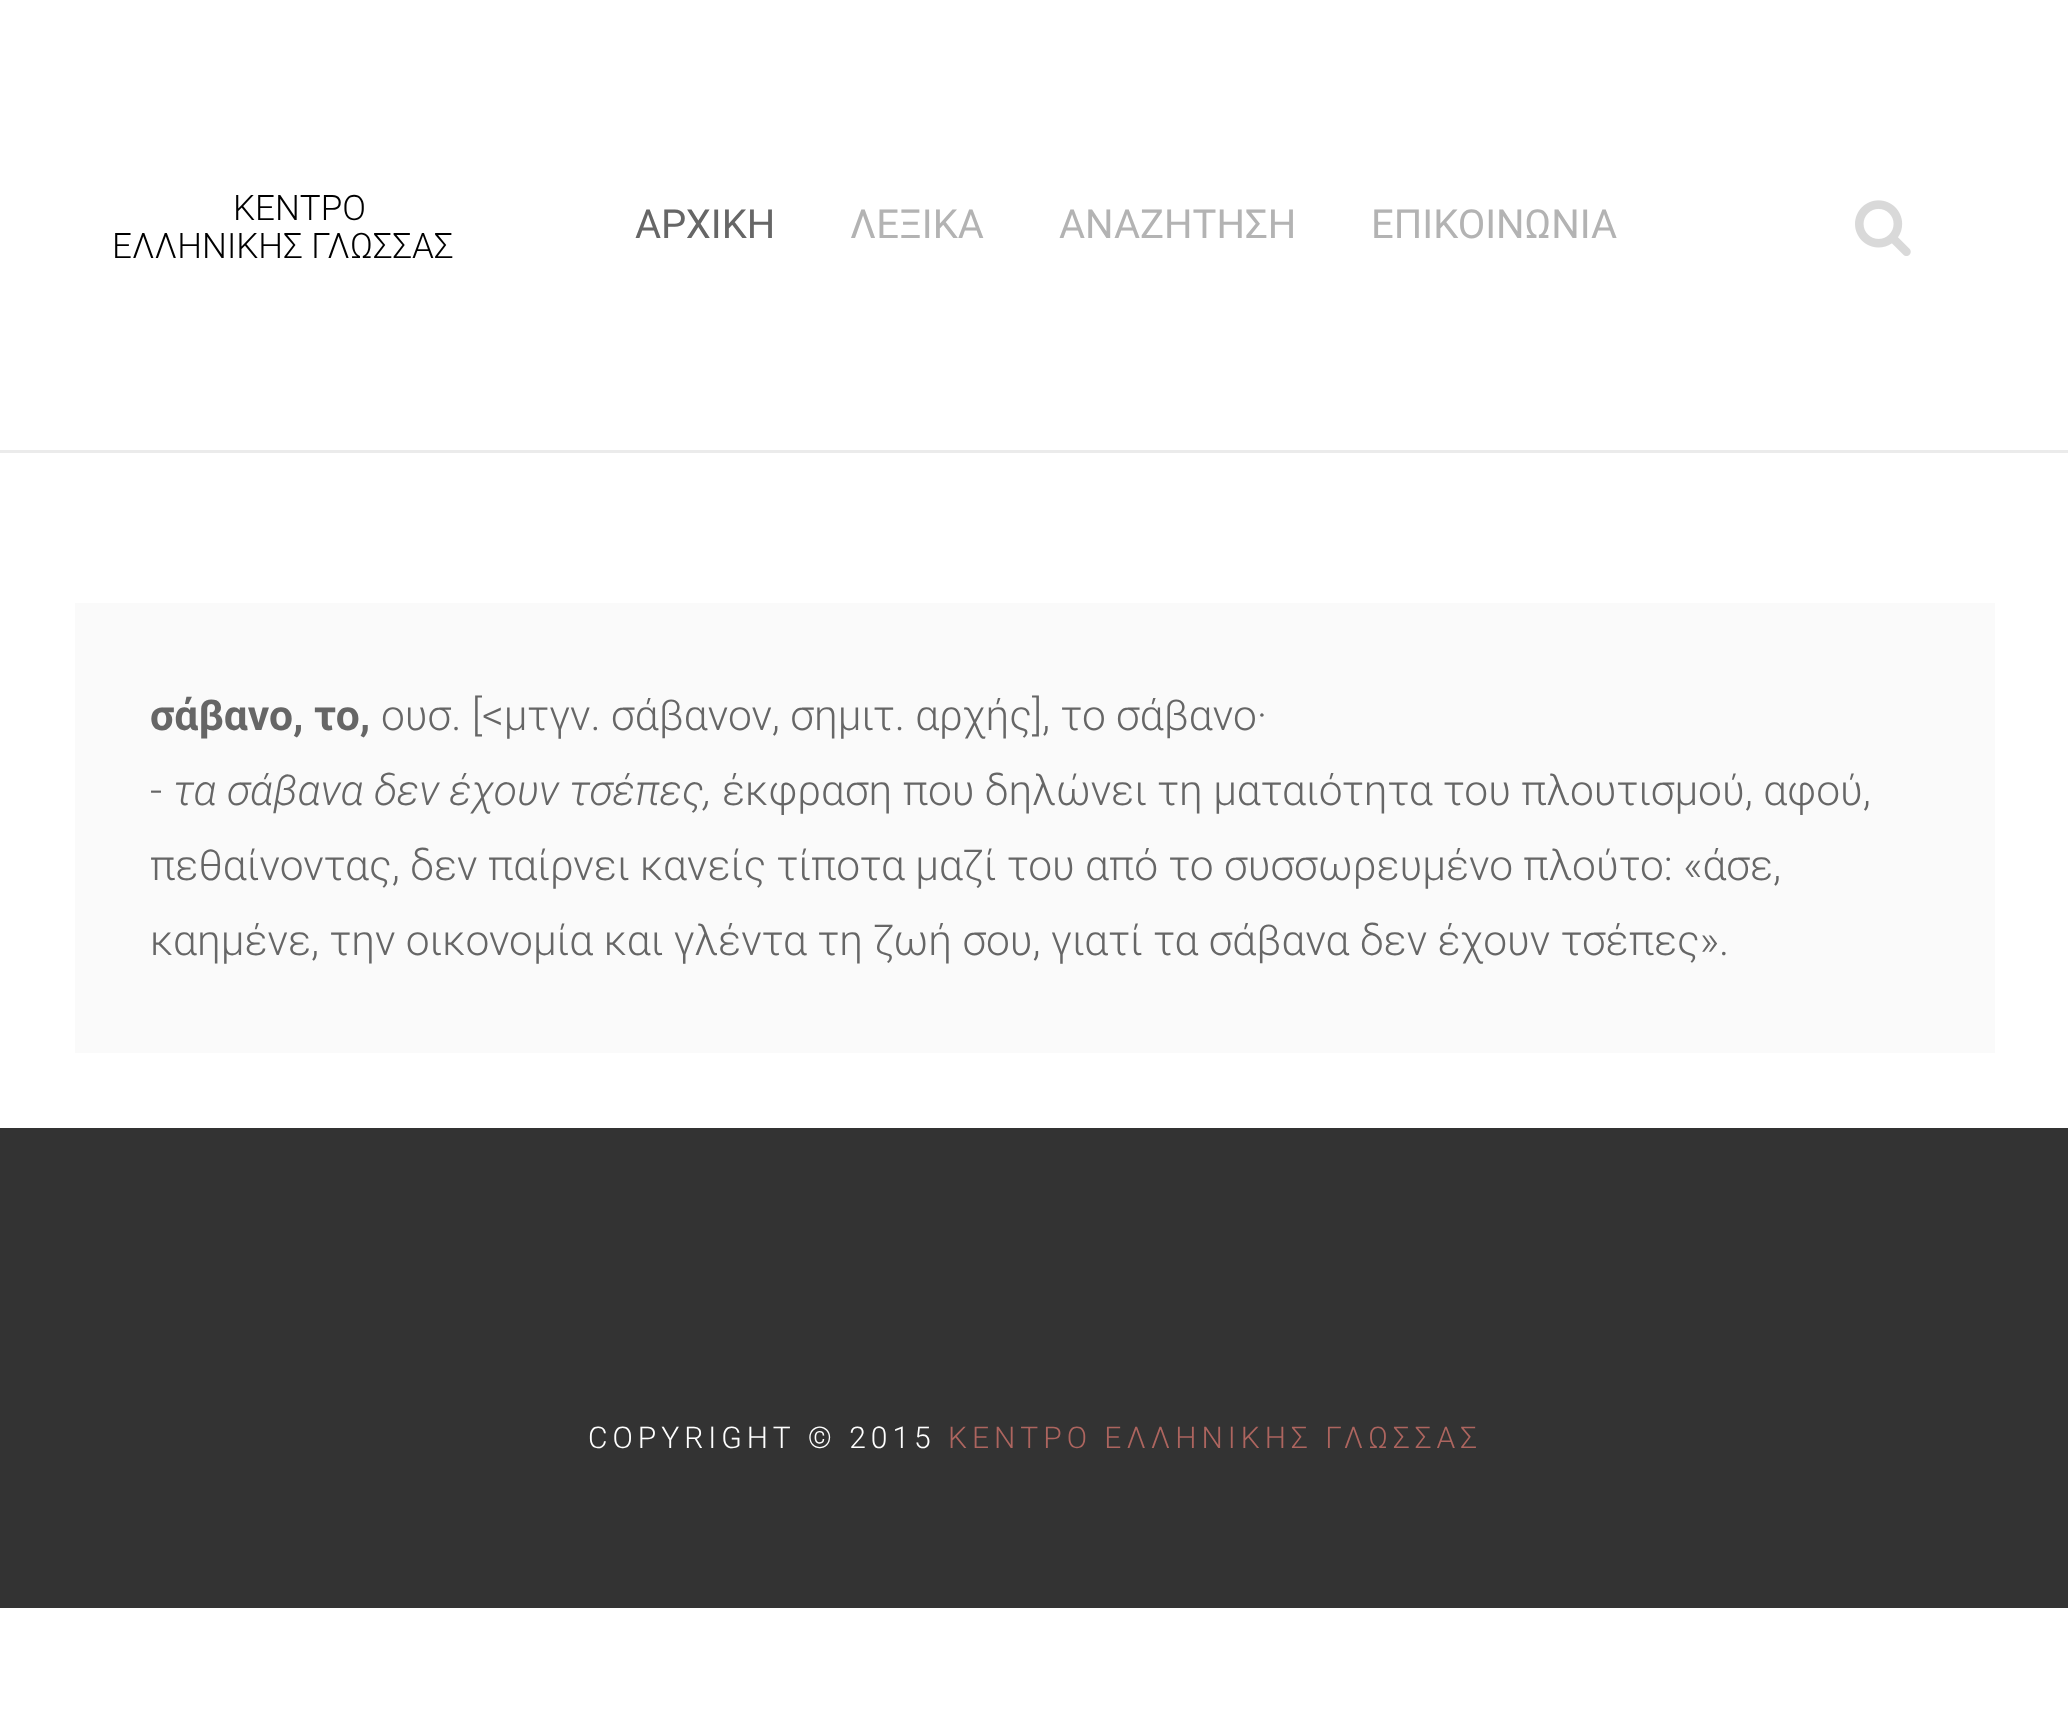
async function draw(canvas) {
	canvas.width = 2068;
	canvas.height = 1728;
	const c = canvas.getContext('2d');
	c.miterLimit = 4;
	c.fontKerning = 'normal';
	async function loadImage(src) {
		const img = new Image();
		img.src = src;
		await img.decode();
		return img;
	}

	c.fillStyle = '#fff';
	c.fillRect(0, 0, 2068, 1728);
	c.fillStyle = '#ebebeb';
	c.fillRect(0, 450, 2068, 3);
	c.font = '300 35px Roboto';
	c.fillStyle = '#000';
	c.fillText('ΚΕΝΤΡΟ', 233, 220);
	c.fillText('ΕΛΛΗΝΙΚΗΣ ΓΛΩΣΣΑΣ', 112, 258);
	c.font = '40px Roboto';
	c.fillStyle = '#666';
	c.fillText('ΑΡΧΙΚΗ', 635, 238);
	c.fillStyle = '#b3b3b3';
	for (const [text, x, y] of [
		['ΛΕΞΙΚΑ', 850, 238],
		['ΑΝΑΖΗΤΗΣΗ', 1059, 238],
		['ΕΠΙΚΟΙΝΩΝΙΑ', 1371, 238],
	]) {
		c.fillText(text, x, y);
	}
	c.drawImage(await loadImage('img1.png'), 1855, 200, 56, 56);
	c.fillStyle = '#fafafa';
	c.fillRect(75, 603, 1920, 450);
	c.font = 'bold 42.5px Roboto';
	c.fillStyle = '#666';
	c.fillText('σάβανο, το,', 150, 730);
	c.font = '300 42.5px Roboto';
	c.fillText('ουσ. [<μτγν. σάβανον, σημιτ. αρχής], το σάβανο·', 381, 730);
	c.fillText('-', 150, 805);
	c.font = 'italic 300 42.5px Roboto';
	c.fillText('τα σάβανα δεν έχουν τσέπες,', 173, 805);
	c.font = '300 42.5px Roboto';
	for (const [text, x, y] of [
		['έκφραση που δηλώνει τη ματαιότητα του πλουτισμού, αφού,', 722, 805],
		['πεθαίνοντας, δεν παίρνει κανείς τίποτα μαζί του από το συσσωρευμένο πλούτο: «άσε,', 150, 880],
		['καημένε, την οικονομία και γλέντα τη ζωή σου, γιατί τα σάβανα δεν έχουν τσέπες».', 150, 955],
	]) {
		c.fillText(text, x, y);
	}
	c.fillStyle = '#333';
	c.fillRect(0, 1128, 2068, 480);
	c.letterSpacing = '5px';
	c.font = '300 30px Roboto';
	c.fillStyle = '#fff';
	c.fillText('COPYRIGHT © 2015', 588, 1448);
	c.fillStyle = '#ad655f';
	c.fillText('ΚΕΝΤΡΟ ΕΛΛΗΝΙΚΗΣ ΓΛΩΣΣΑΣ', 948, 1448);
}

draw(document.querySelector('canvas'));
